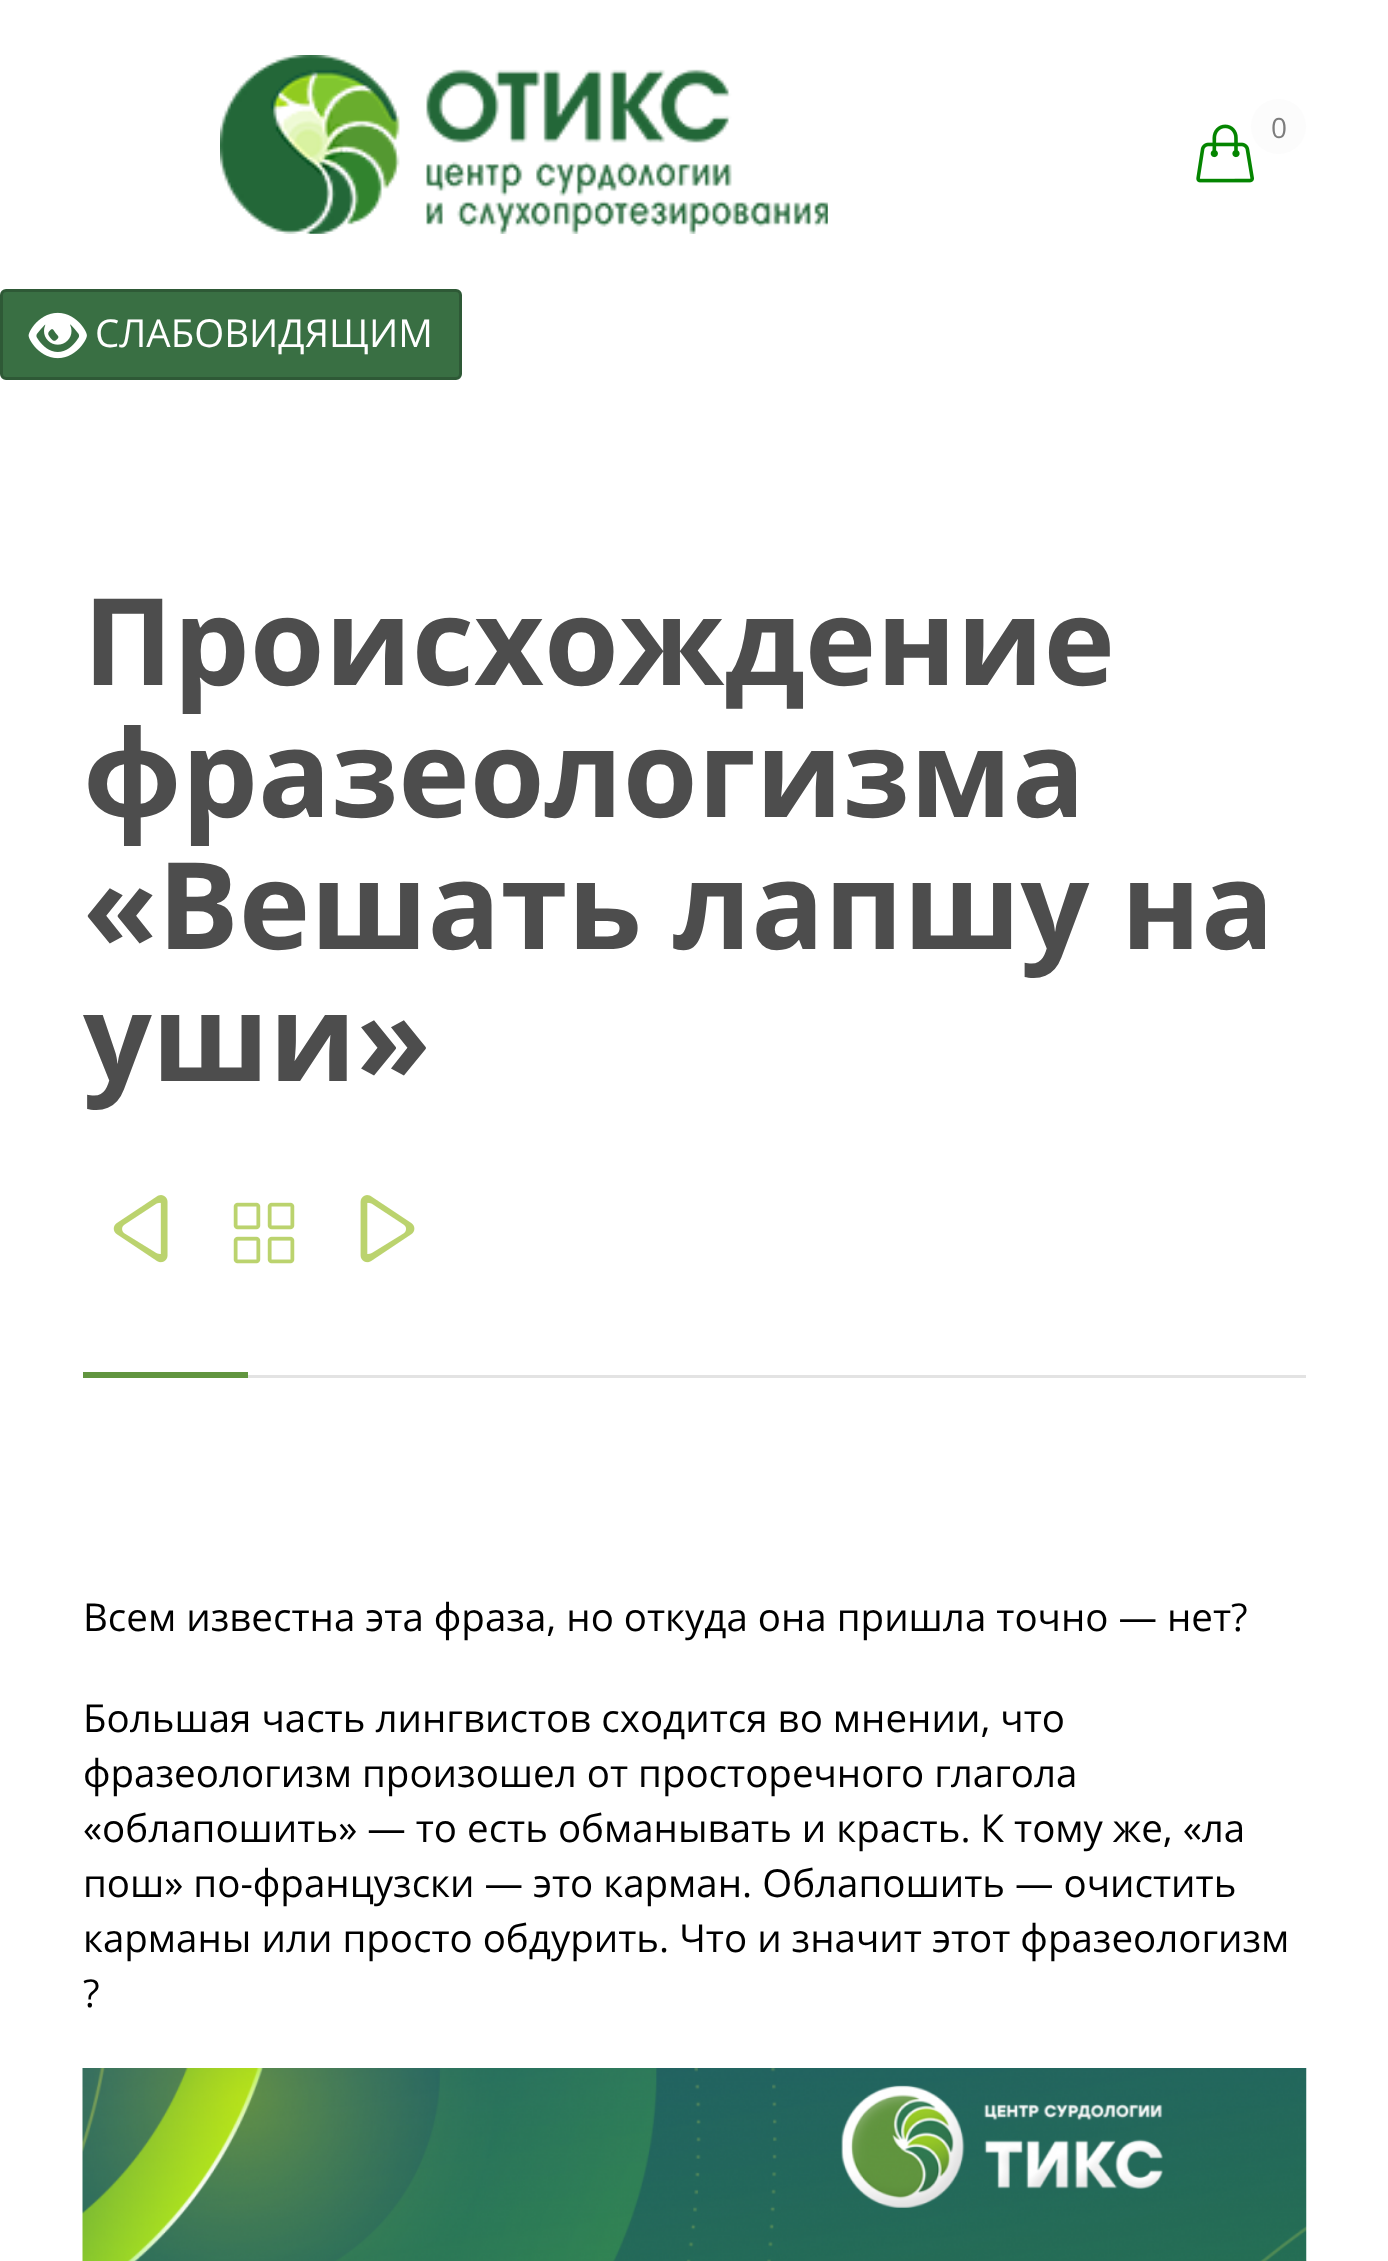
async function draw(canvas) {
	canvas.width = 1388;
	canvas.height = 2261;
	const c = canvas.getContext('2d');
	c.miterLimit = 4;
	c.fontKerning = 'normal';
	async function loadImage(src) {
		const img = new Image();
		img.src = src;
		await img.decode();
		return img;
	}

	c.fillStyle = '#fff';
	c.fillRect(0, 0, 1388, 2261);
	c.drawImage(await loadImage('img1.png'), 220, 55, 608, 179);
	c.drawImage(await loadImage('img2.png'), 1196, 124, 58, 59);
	c.fillStyle = '#fcfcfc';
	c.beginPath();
	c.arc(1278.5, 126.5, 27.5, 0, 2 * Math.PI);
	c.fill();
	c.font = '28px Open Sans';
	c.fillStyle = '#7d7d7d';
	c.fillText('0', 1271, 138);
	c.fillStyle = '#396f43';
	c.beginPath();
	c.roundRect(1.5, 290.5, 459, 88, 4.5);
	c.fill();
	c.strokeStyle = '#2e5936';
	c.lineWidth = 3;
	c.stroke();
	c.drawImage(await loadImage('img3.png'), 28, 312, 59, 47);
	c.font = '38.5px Open Sans';
	c.fillStyle = '#fff';
	c.fillText('СЛАБОВИДЯЩИМ', 95, 347);
	c.fillStyle = '#e3e3e3';
	c.fillRect(248, 1375, 1058, 3);
	c.font = 'bold 121px Open Sans';
	c.fillStyle = '#4d4d4d';
	for (const [text, x, y] of [
		['Происхождение', 83, 685],
		['фразеологизма', 83, 817],
		['«Вешать лапшу на', 83, 949],
		['уши»', 83, 1081],
	]) {
		c.fillText(text, x, y);
	}
	c.drawImage(await loadImage('img4.png'), 113, 1195, 55, 68);
	c.drawImage(await loadImage('img5.png'), 233, 1202, 62, 62);
	c.drawImage(await loadImage('img6.png'), 360, 1195, 55, 68);
	c.fillStyle = '#61953f';
	c.fillRect(83, 1372, 165, 6);
	c.font = '38.5px Open Sans';
	c.fillStyle = '#000';
	for (const [text, x, y] of [
		['Всем известна эта фраза, но откуда она пришла точно — нет?', 83, 1631],
		['Большая часть лингвистов сходится во мнении, что', 83, 1732],
		['фразеологизм произошел от просторечного глагола', 83, 1787],
		['«облапошить» — то есть обманывать и красть. К тому же, «ла', 83, 1842],
		['пош» по-французски — это карман. Облапошить — очистить', 83, 1897],
		['карманы или просто обдурить. Что и значит этот фразеологизм', 83, 1952],
		['?', 83, 2007],
	]) {
		c.fillText(text, x, y);
	}
	c.drawImage(await loadImage('img7.png'), 82, 2068, 1225, 193);
}

draw(document.querySelector('canvas'));
